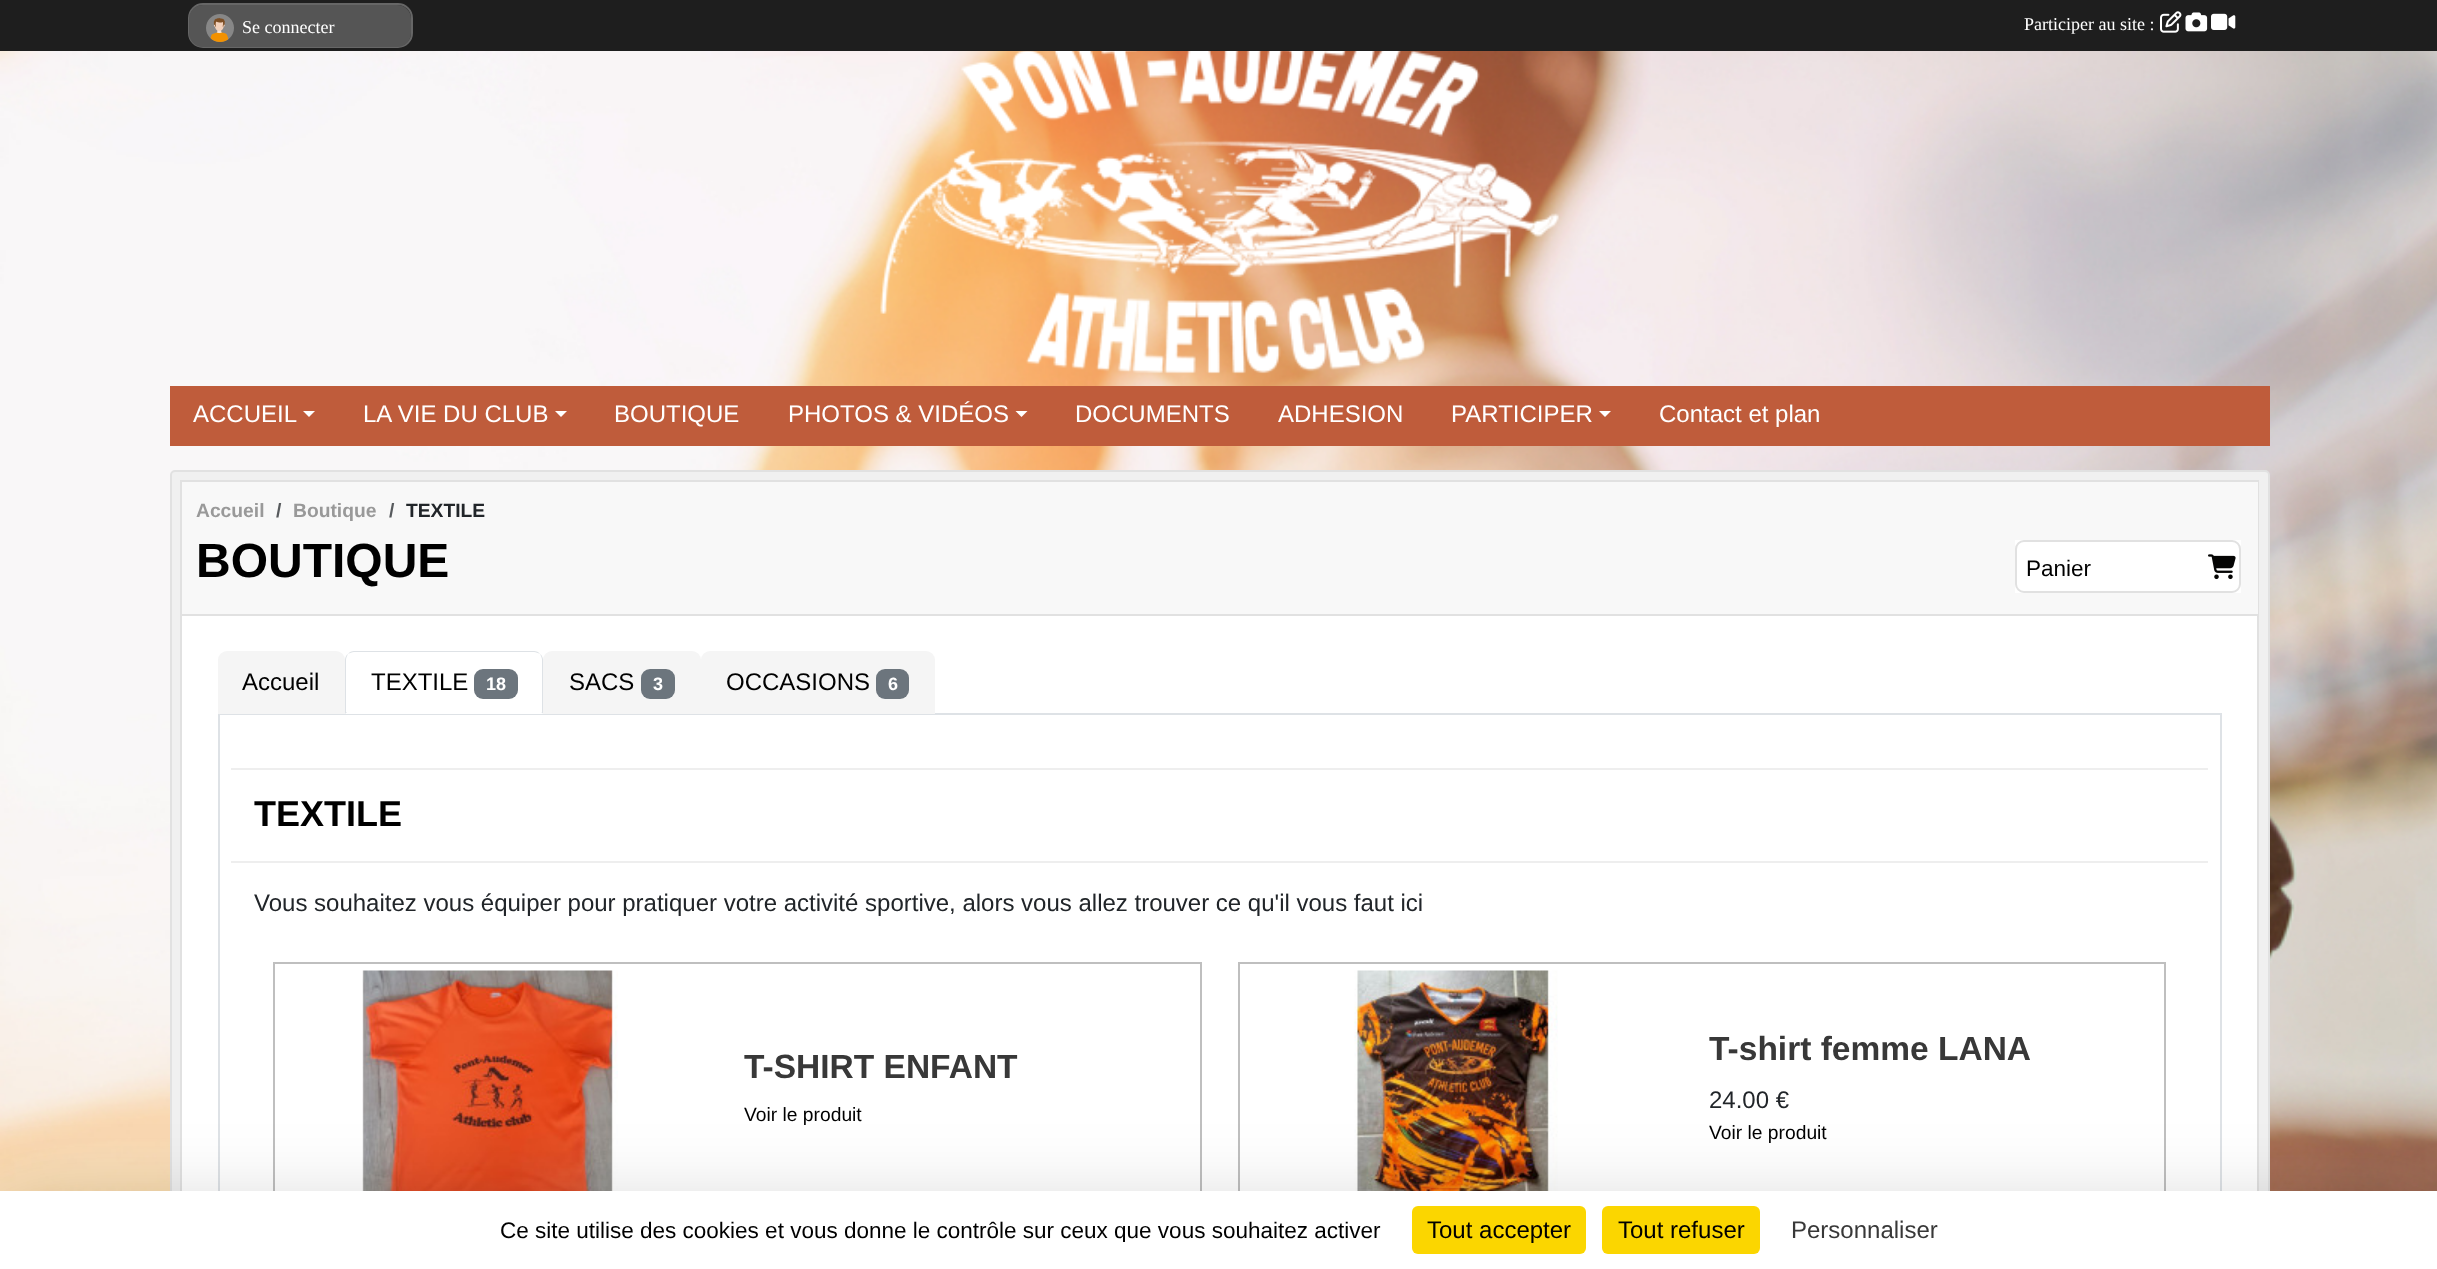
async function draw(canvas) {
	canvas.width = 2437;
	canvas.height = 1269;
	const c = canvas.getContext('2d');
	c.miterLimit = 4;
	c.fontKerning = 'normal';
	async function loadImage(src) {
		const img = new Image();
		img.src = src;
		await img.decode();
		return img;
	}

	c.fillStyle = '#fff';
	c.fillRect(0, 0, 2437, 1269);
	c.drawImage(await loadImage('img1.png'), 0, 51, 2437, 1140);
	c.fillStyle = '#1e1e1e';
	c.fillRect(0, 0, 2437, 51);
	c.fillStyle = '#333';
	c.beginPath();
	c.roundRect(189, 4, 223, 43, 14);
	c.fill();
	c.strokeStyle = '#666';
	c.lineWidth = 2;
	c.stroke();
	c.fillStyle = '#555';
	c.beginPath();
	c.roundRect(189, 5, 222, 42, 14);
	c.fill();
	c.drawImage(await loadImage('img2.png'), 206, 14, 28, 28);
	c.font = '18px Liberation Serif';
	c.fillStyle = '#fff';
	c.fillText('Se connecter', 242, 33);
	c.fillText('Participer au site :', 2024, 30);
	c.drawImage(await loadImage('img3.png'), 2160, 11, 22, 22);
	c.drawImage(await loadImage('img4.png'), 2185, 12, 23, 20);
	c.drawImage(await loadImage('img5.png'), 2211, 13, 25, 17);
	c.drawImage(await loadImage('img6.png'), 880, 51, 679, 323);
	c.fillStyle = '#bf5c3b';
	c.fillRect(170, 386, 2100, 60);
	c.font = '24px Liberation Sans';
	c.fillStyle = '#fff';
	c.fillText('ACCUEIL', 193, 422);
	c.beginPath();
	c.moveTo(303, 411);
	c.lineTo(315, 411);
	c.lineTo(309, 417);
	c.closePath();
	c.fill();
	c.fillText('LA VIE DU CLUB', 363, 422);
	c.beginPath();
	c.moveTo(555, 411);
	c.lineTo(567, 411);
	c.lineTo(561, 417);
	c.closePath();
	c.fill();
	c.fillText('BOUTIQUE', 614, 422);
	c.fillText('PHOTOS & VIDÉOS', 788, 422);
	c.beginPath();
	c.moveTo(1015.5, 411);
	c.lineTo(1027.5, 411);
	c.lineTo(1021.5, 417);
	c.closePath();
	c.fill();
	for (const [text, x, y] of [
		['DOCUMENTS', 1075, 422],
		['ADHESION', 1278, 422],
		['PARTICIPER', 1451, 422],
	]) {
		c.fillText(text, x, y);
	}
	c.beginPath();
	c.moveTo(1599, 411);
	c.lineTo(1611, 411);
	c.lineTo(1605, 417);
	c.closePath();
	c.fill();
	c.fillText('Contact et plan', 1659, 422);
	c.fillStyle = '#f0f0f0';
	c.beginPath();
	c.roundRect(171, 471, 2098, 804, 4);
	c.fill();
	c.strokeStyle = '#e1e1e1';
	c.stroke();
	c.fillStyle = '#fff';
	c.fillRect(182, 616, 2075, 575);
	c.strokeRect(181, 481, 2077, 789);
	c.fillStyle = '#f8f8f8';
	c.fillRect(182, 482, 2076, 132);
	c.fillStyle = '#e1e1e1';
	c.fillRect(182, 614, 2076, 2);
	c.font = 'bold 19.25px Liberation Sans';
	c.fillStyle = '#999';
	c.fillText('Accueil', 196, 517);
	c.fillStyle = '#575a5d';
	c.fillText('/', 276, 517);
	c.fillStyle = '#999';
	c.fillText('Boutique', 293, 517);
	c.fillStyle = '#575a5d';
	c.fillText('/', 389, 517);
	c.fillStyle = '#212529';
	c.fillText('TEXTILE', 406, 517);
	c.font = 'bold 48px Liberation Sans';
	c.fillStyle = '#000';
	c.fillText('BOUTIQUE', 196, 577);
	c.fillStyle = '#fff';
	c.fillRect(2015, 540, 226, 53);
	c.beginPath();
	c.roundRect(2016, 541, 224, 51, 8);
	c.stroke();
	c.font = '22.5px Liberation Sans';
	c.fillStyle = '#000';
	c.fillText('Panier', 2026, 576);
	c.drawImage(await loadImage('img7.png'), 2208, 554, 28, 26);
	c.fillStyle = '#dee2e6';
	c.fillRect(218, 713, 2004, 2);
	c.fillStyle = '#f5f5f5';
	c.beginPath();
	c.roundRect(218, 651, 127, 63, [9, 9, 0, 0]);
	c.fill();
	c.font = '24px Liberation Sans';
	c.fillStyle = '#000';
	c.fillText('Accueil', 242, 690);
	c.fillStyle = '#fff';
	c.beginPath();
	c.roundRect(345, 651, 198, 63, [9, 9, 0, 0]);
	c.fill();
	c.fillStyle = '#dee2e6';
	c.beginPath();
	c.moveTo(354, 651);
	c.bezierCurveTo(352, 651, 349, 652, 348, 654);
	c.bezierCurveTo(350, 653, 352, 652, 354, 652);
	c.lineTo(534, 652);
	c.bezierCurveTo(536, 652, 538, 653, 540, 654);
	c.bezierCurveTo(539, 652, 536, 651, 534, 651);
	c.closePath();
	c.fill();
	c.beginPath();
	c.moveTo(543, 714);
	c.lineTo(543, 660);
	c.bezierCurveTo(543, 658, 542, 655, 540, 654);
	c.bezierCurveTo(541, 656, 542, 658, 542, 660);
	c.lineTo(542, 712);
	c.lineTo(541, 712);
	c.closePath();
	c.fill();
	c.fillStyle = '#fff';
	c.beginPath();
	c.moveTo(543, 714);
	c.lineTo(541, 712);
	c.lineTo(347, 712);
	c.lineTo(345, 714);
	c.closePath();
	c.fill();
	c.fillStyle = '#dee2e6';
	c.beginPath();
	c.moveTo(345, 714);
	c.lineTo(347, 712);
	c.lineTo(346, 712);
	c.lineTo(346, 660);
	c.bezierCurveTo(346, 658, 347, 656, 348, 654);
	c.bezierCurveTo(346, 655, 345, 658, 345, 660);
	c.closePath();
	c.fill();
	c.fillStyle = '#000';
	c.fillText('TEXTILE', 371, 690);
	c.fillStyle = '#6c757d';
	c.beginPath();
	c.roundRect(474, 669, 44, 30, 9);
	c.fill();
	c.font = 'bold 18px Liberation Sans';
	c.fillStyle = '#fff';
	c.fillText('18', 486, 690);
	c.fillStyle = '#f5f5f5';
	c.beginPath();
	c.roundRect(543, 651, 158, 63, [9, 9, 0, 0]);
	c.fill();
	c.font = '24px Liberation Sans';
	c.fillStyle = '#000';
	c.fillText('SACS', 569, 690);
	c.fillStyle = '#6c757d';
	c.beginPath();
	c.roundRect(641, 669, 34, 30, 9);
	c.fill();
	c.font = 'bold 18px Liberation Sans';
	c.fillStyle = '#fff';
	c.fillText('3', 653, 690);
	c.fillStyle = '#f5f5f5';
	c.beginPath();
	c.roundRect(701, 651, 234, 63, [9, 9, 0, 0]);
	c.fill();
	c.font = '24px Liberation Sans';
	c.fillStyle = '#000';
	c.fillText('OCCASIONS', 726, 690);
	c.fillStyle = '#6c757d';
	c.beginPath();
	c.roundRect(876, 669, 33, 30, 9);
	c.fill();
	c.font = 'bold 18px Liberation Sans';
	c.fillStyle = '#fff';
	c.fillText('6', 888, 690);
	for (const [x, y, w, h, color] of [
		[2220, 714, 2, 477, '#dee2e6'],
		[218, 714, 2, 477, '#dee2e6'],
		[231, 768, 1977, 2, '#eee'],
		[231, 861, 1977, 2, '#eee'],
	]) {
		c.fillStyle = color;
		c.fillRect(x, y, w, h);
	}
	c.font = 'bold 36px Liberation Sans';
	c.fillStyle = '#000';
	c.fillText('TEXTILE', 254, 826);
	c.font = '24px Liberation Sans';
	c.fillStyle = '#212529';
	c.fillText('Vous souhaitez vous équiper pour pratiquer votre activité sportive, alors vous allez trouver ce qu\'il vous faut ici', 254, 911);
	c.strokeStyle = '#bfbfbf';
	c.strokeRect(274, 963, 927, 277);
	c.drawImage(await loadImage('img8.png'), 362, 970, 256, 221);
	c.font = 'bold 33.5px Liberation Sans';
	c.fillStyle = '#383838';
	c.fillText('T-SHIRT ENFANT', 744, 1078);
	c.font = '19.25px Liberation Sans';
	c.fillStyle = '#000';
	c.fillText('Voir le produit', 744, 1121);
	c.strokeRect(1239, 963, 926, 277);
	c.drawImage(await loadImage('img9.png'), 1354, 970, 204, 221);
	c.font = 'bold 33.5px Liberation Sans';
	c.fillStyle = '#383838';
	c.fillText('T-shirt femme LANA', 1709, 1060);
	c.font = '24px Liberation Sans';
	c.fillStyle = '#212529';
	c.fillText('24.00 €', 1709, 1108);
	c.font = '19.25px Liberation Sans';
	c.fillStyle = '#000';
	c.fillText('Voir le produit', 1709, 1139);
	c.fillStyle = '#00000040';
	c.filter = 'blur(45px)';
	c.beginPath();
	c.rect(0, 1221, 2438, 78);
	c.fill();
	c.filter = 'none';
	c.fillStyle = '#fff';
	c.fillRect(0, 1191, 2437, 78);
	c.save();
	c.beginPath();
	c.rect(485, 1217, 910, 25);
	c.clip();
	c.font = '22.5px Liberation Sans';
	c.fillStyle = '#000';
	c.fillText('Ce site utilise des cookies et vous donne le contrôle sur ceux que vous souhaitez activer', 500, 1238);
	c.restore();
	c.fillStyle = '#fbd600';
	c.beginPath();
	c.roundRect(1412, 1206, 174, 48, 6);
	c.fill();
	c.font = '24px Liberation Sans';
	c.fillStyle = '#000';
	c.fillText('Tout accepter', 1427, 1238);
	c.fillStyle = '#fbd600';
	c.beginPath();
	c.roundRect(1602, 1206, 158, 48, 6);
	c.fill();
	c.fillStyle = '#000';
	c.fillText('Tout refuser', 1618, 1238);
	c.fillStyle = '#383838';
	c.fillText('Personnaliser', 1791, 1238);
}

draw(document.querySelector('canvas'));
